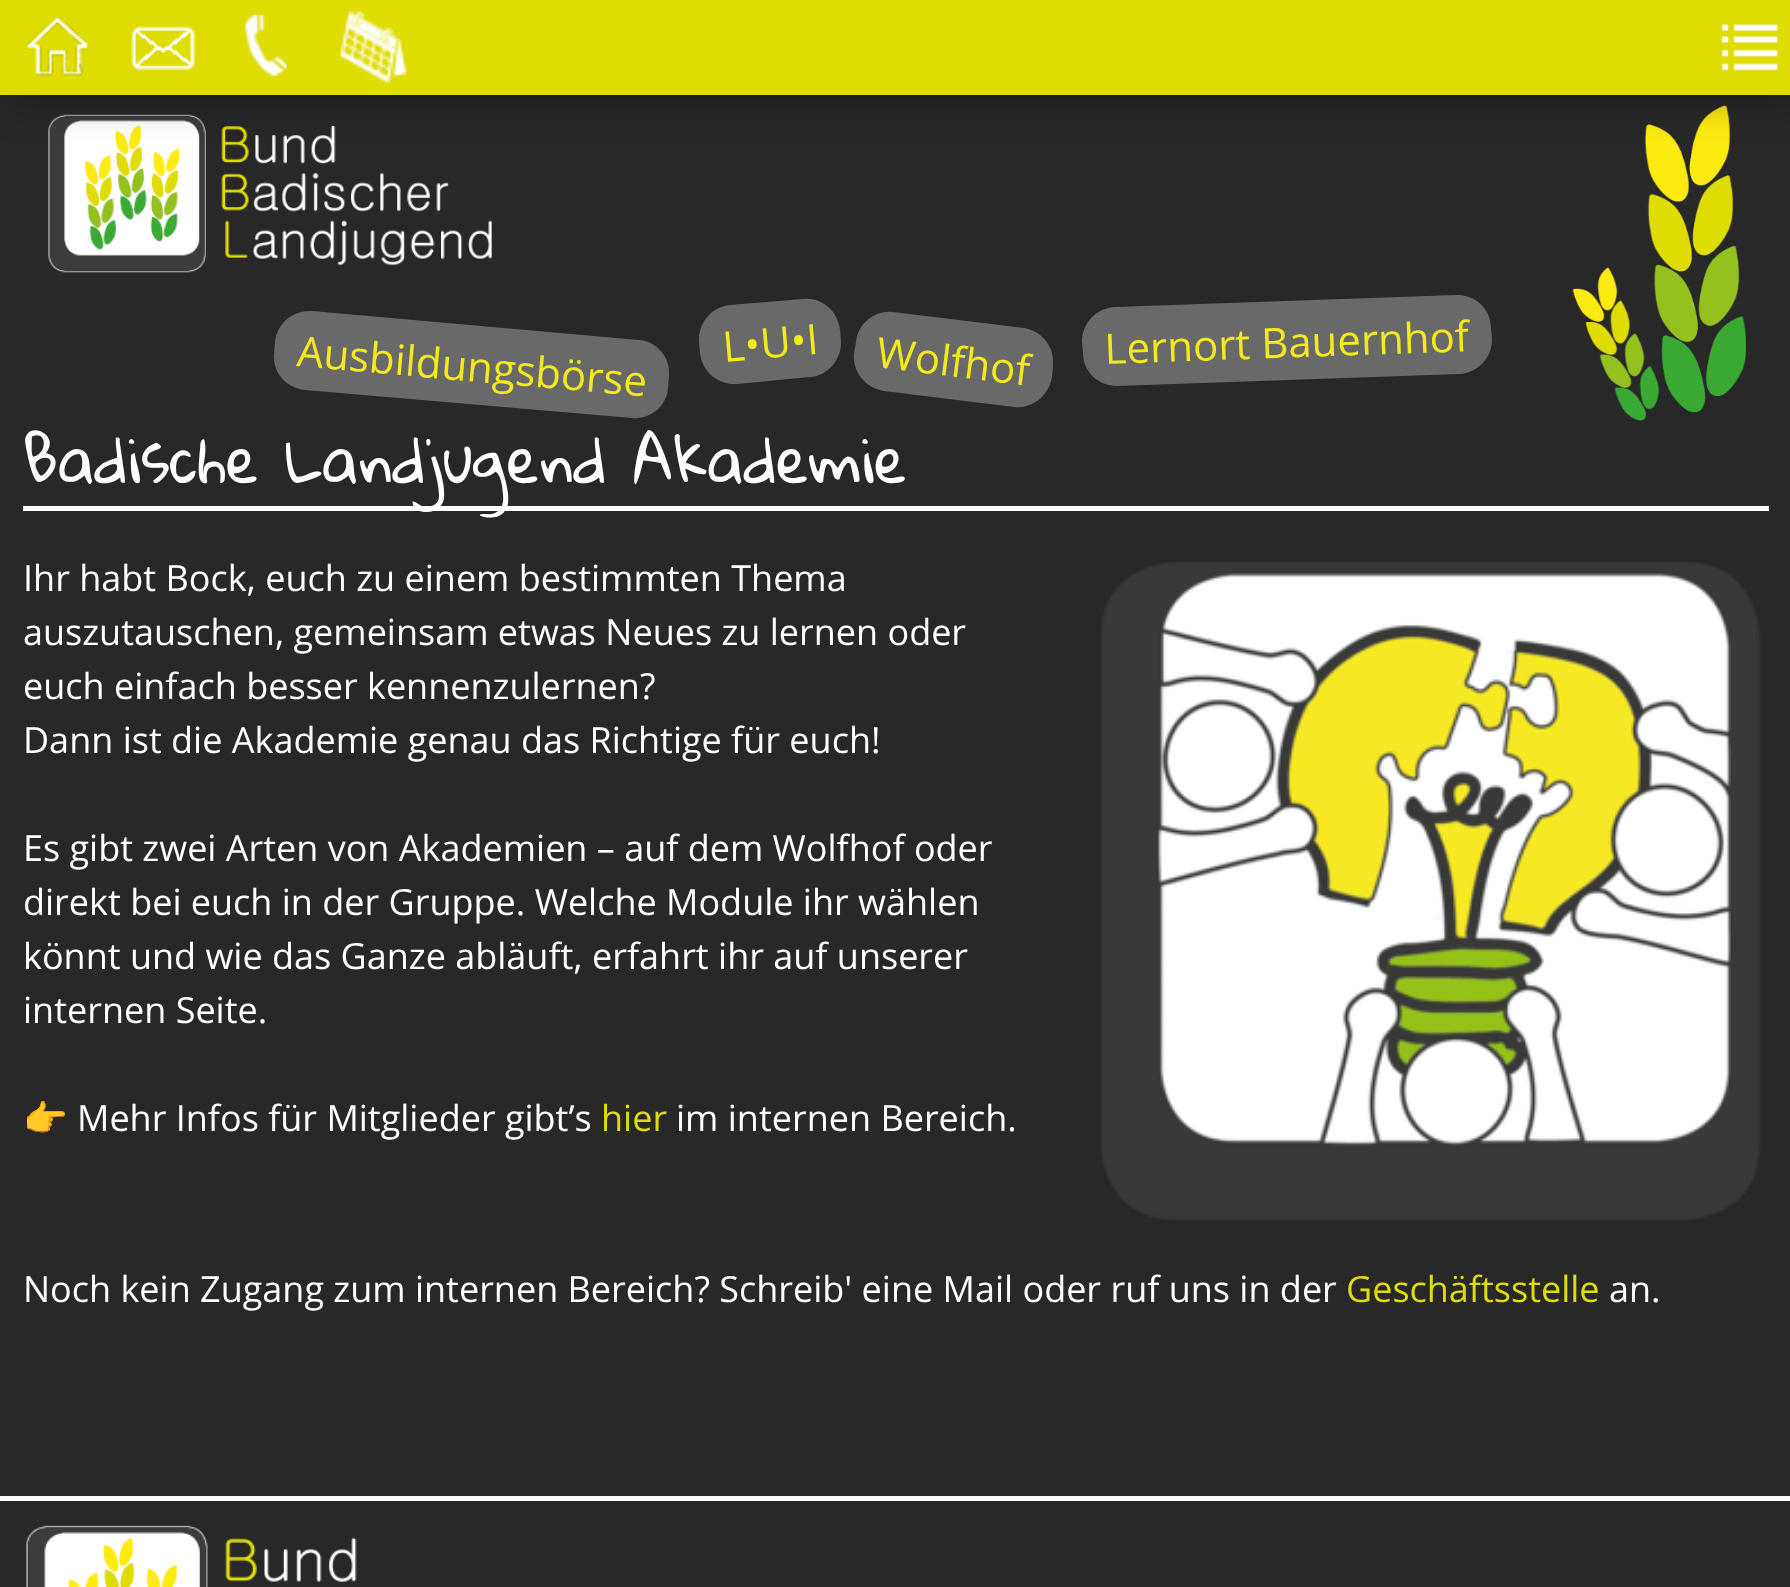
async function draw(canvas) {
	canvas.width = 1790;
	canvas.height = 1587;
	const c = canvas.getContext('2d');
	c.miterLimit = 4;
	c.fontKerning = 'normal';
	async function loadImage(src) {
		const img = new Image();
		img.src = src;
		await img.decode();
		return img;
	}

	c.fillStyle = '#282828';
	c.fillRect(0, 0, 1790, 1587);
	c.drawImage(await loadImage('img6.png'), 48, 114, 444, 159);
	c.drawImage(await loadImage('img7.png'), 1572, 105, 174, 316);
	c.fillStyle = '#0000004d';
	c.filter = 'blur(20px)';
	c.beginPath();
	c.rect(7, 20, 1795, 81);
	c.fill();
	c.filter = 'none';
	c.fillStyle = '#dedc00';
	c.fillRect(0, 0, 1790, 95);
	c.drawImage(await loadImage('img1.png'), 27, 16, 61, 61);
	c.drawImage(await loadImage('img2.png'), 131, 26, 65, 45);
	c.drawImage(await loadImage('img3.png'), 244, 14, 44, 63);
	c.drawImage(await loadImage('img4.png'), 339, 10, 68, 74);
	c.drawImage(await loadImage('img5.png'), 1721, 24, 57, 47);
	c.fillStyle = '#696969';
	c.beginPath();
	c.moveTo(312, 311);
	c.lineTo(639, 340);
	c.bezierCurveTo(657, 341, 671, 358, 669, 376);
	c.lineTo(668, 388);
	c.bezierCurveTo(667, 406, 650, 420, 632, 418);
	c.lineTo(305, 390);
	c.bezierCurveTo(286, 388, 272, 372, 274, 353);
	c.lineTo(275, 342);
	c.bezierCurveTo(277, 323, 293, 310, 312, 311);
	c.closePath();
	c.fill();
	c.font = '42px Open Sans';
	c.fillStyle = '#f3ea1b';
	c.save();
	c.translate(296, 366);
	c.rotate(5 * Math.PI / 180);
	c.fillText('Ausbildungsbörse', 0, 0);
	c.restore();
	c.fillStyle = '#696969';
	c.beginPath();
	c.moveTo(730, 305);
	c.lineTo(803, 299);
	c.bezierCurveTo(822, 297, 838, 311, 840, 330);
	c.lineTo(841, 341);
	c.bezierCurveTo(842, 359, 828, 376, 810, 377);
	c.lineTo(737, 384);
	c.bezierCurveTo(718, 385, 702, 372, 700, 353);
	c.lineTo(699, 342);
	c.bezierCurveTo(698, 323, 711, 307, 730, 305);
	c.closePath();
	c.fill();
	c.fillStyle = '#f3ea1b';
	c.save();
	c.translate(724, 362);
	c.rotate(-5 * Math.PI / 180);
	c.fillText('L•U•I', 0, 0);
	c.restore();
	c.fillStyle = '#696969';
	c.beginPath();
	c.moveTo(893, 312);
	c.lineTo(1024, 328);
	c.bezierCurveTo(1042, 331, 1055, 347, 1053, 366);
	c.lineTo(1052, 377);
	c.bezierCurveTo(1049, 396, 1032, 409, 1014, 407);
	c.lineTo(884, 391);
	c.bezierCurveTo(865, 388, 852, 371, 854, 353);
	c.lineTo(856, 342);
	c.bezierCurveTo(858, 323, 875, 310, 893, 312);
	c.closePath();
	c.fill();
	c.fillStyle = '#f3ea1b';
	c.save();
	c.translate(875, 367);
	c.rotate(7 * Math.PI / 180);
	c.fillText('Wolfhof', 0, 0);
	c.restore();
	c.fillStyle = '#696969';
	c.beginPath();
	c.moveTo(1115, 307);
	c.lineTo(1456, 295);
	c.bezierCurveTo(1475, 294, 1491, 309, 1491, 328);
	c.lineTo(1492, 339);
	c.bezierCurveTo(1492, 358, 1478, 373, 1459, 374);
	c.lineTo(1117, 386);
	c.bezierCurveTo(1099, 386, 1083, 372, 1083, 353);
	c.lineTo(1082, 342);
	c.bezierCurveTo(1082, 323, 1096, 308, 1115, 307);
	c.closePath();
	c.fill();
	c.fillStyle = '#f3ea1b';
	c.save();
	c.translate(1105, 364);
	c.rotate(-2 * Math.PI / 180);
	c.fillText('Lernort Bauernhof', 0, 0);
	c.restore();
	c.fillStyle = '#fff';
	c.fillRect(23, 506, 1746, 5);
	c.font = '60px Gloria Hallelujah';
	c.fillText('Badische Landjugend Akademie', 23, 483);
	c.font = '36px Open Sans';
	c.fillText('Ihr habt Bock, euch zu einem bestimmten Thema', 23, 591);
	c.drawImage(await loadImage('img8.png'), 1100, 561, 661, 660);
	for (const [text, x, y] of [
		['auszutauschen, gemeinsam etwas Neues zu lernen oder', 23, 645],
		['euch einfach besser kennenzulernen?', 23, 699],
		['Dann ist die Akademie genau das Richtige für euch!', 23, 753],
		['Es gibt zwei Arten von Akademien – auf dem Wolfhof oder', 23, 861],
		['direkt bei euch in der Gruppe. Welche Module ihr wählen', 23, 915],
		['könnt und wie das Ganze abläuft, erfahrt ihr auf unserer', 23, 969],
		['internen Seite.', 23, 1023],
	]) {
		c.fillText(text, x, y);
	}
	c.font = '36px Noto Color Emoji';
	c.fillText('👉', 23, 1131);
	c.font = '36px Open Sans';
	c.fillText('Mehr Infos für Mitglieder gibt’s', 77, 1131);
	c.fillStyle = '#dedc00';
	c.fillText('hier', 601, 1131);
	c.fillStyle = '#fff';
	c.fillText('im internen Bereich.', 676, 1131);
	c.fillText('Noch kein Zugang zum internen Bereich? Schreib\' eine Mail oder ruf uns in der', 23, 1302);
	c.fillStyle = '#dedc00';
	c.fillText('Geschäftsstelle', 1346, 1302);
	c.fillStyle = '#fff';
	c.fillText('an.', 1609, 1302);
	c.fillRect(0, 1496, 1790, 5);
	c.drawImage(await loadImage('img9.png'), 26, 1525, 331, 62);
}

draw(document.querySelector('canvas'));
